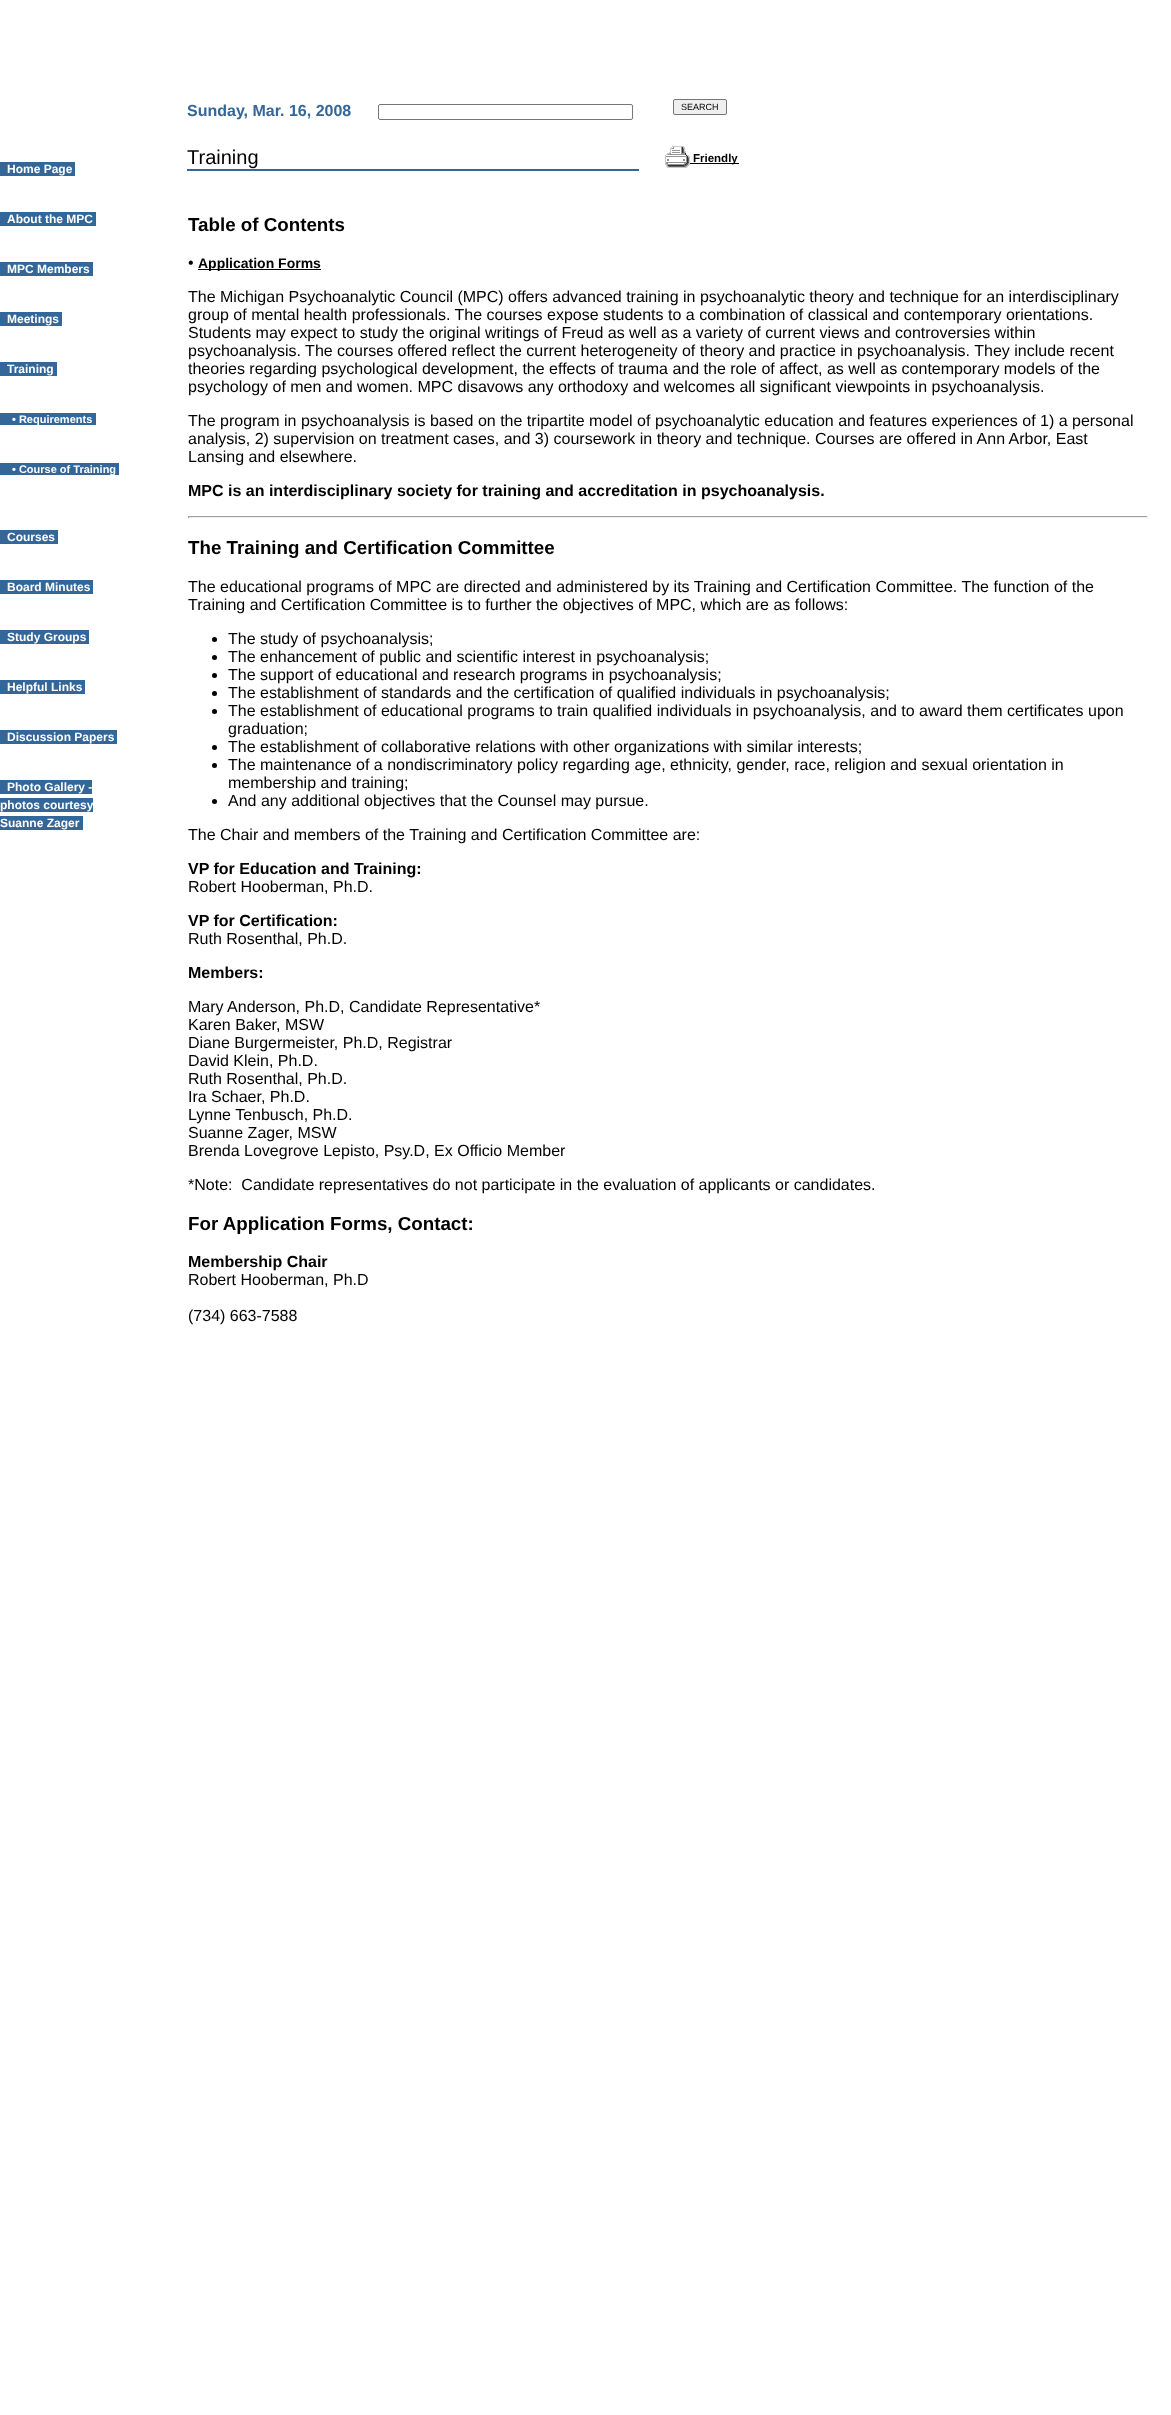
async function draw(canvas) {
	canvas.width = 1171;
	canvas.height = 2415;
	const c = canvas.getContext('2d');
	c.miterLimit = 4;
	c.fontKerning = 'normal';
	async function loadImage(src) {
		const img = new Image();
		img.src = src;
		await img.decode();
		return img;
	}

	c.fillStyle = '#fff';
	c.fillRect(0, 0, 1171, 2415);
	c.font = 'bold 16px Liberation Sans';
	c.fillStyle = '#369';
	c.fillText('Sunday, Mar. 16, 2008', 187, 116);
	c.beginPath();
	c.roundRect(378.5, 104.5, 254, 15, 1.5);
	c.strokeStyle = '#767676';
	c.stroke();
	c.fillStyle = '#efefef';
	c.beginPath();
	c.roundRect(673.5, 99.5, 53, 15, 1.5);
	c.fill();
	c.stroke();
	c.font = '9px Liberation Sans';
	c.fillStyle = '#000';
	c.fillText('SEARCH', 681, 110);
	c.fillStyle = '#369';
	c.fillRect(0, 162, 75, 14);
	c.font = 'bold 12px Liberation Sans';
	c.fillStyle = '#fff';
	c.fillText('Home Page', 7, 173);
	c.fillStyle = '#369';
	c.fillRect(0, 212, 96, 14);
	c.fillStyle = '#fff';
	c.fillText('About the MPC', 7, 223);
	c.fillStyle = '#369';
	c.fillRect(0, 262, 93, 14);
	c.fillStyle = '#fff';
	c.fillText('MPC Members', 7, 273);
	c.fillStyle = '#369';
	c.fillRect(0, 312, 62, 14);
	c.fillStyle = '#fff';
	c.fillText('Meetings', 7, 323);
	c.fillStyle = '#369';
	c.fillRect(0, 362, 57, 14);
	c.fillStyle = '#fff';
	c.fillText('Training', 7, 373);
	c.fillStyle = '#369';
	c.fillRect(0, 413, 96, 12);
	c.font = 'bold 11px Liberation Sans';
	c.fillStyle = '#fff';
	c.fillText('• Requirements', 12, 423);
	c.fillStyle = '#369';
	c.fillRect(0, 463, 119, 12);
	c.fillStyle = '#fff';
	c.fillText('• Course of Training', 12, 473);
	c.fillStyle = '#369';
	c.fillRect(0, 530, 58, 14);
	c.font = 'bold 12px Liberation Sans';
	c.fillStyle = '#fff';
	c.fillText('Courses', 7, 541);
	c.fillStyle = '#369';
	c.fillRect(0, 580, 93, 14);
	c.fillStyle = '#fff';
	c.fillText('Board Minutes', 7, 591);
	c.fillStyle = '#369';
	c.fillRect(0, 630, 89, 14);
	c.fillStyle = '#fff';
	c.fillText('Study Groups', 7, 641);
	c.fillStyle = '#369';
	c.fillRect(0, 680, 85, 14);
	c.fillStyle = '#fff';
	c.fillText('Helpful Links', 7, 691);
	c.fillStyle = '#369';
	c.fillRect(0, 730, 117, 14);
	c.fillStyle = '#fff';
	c.fillText('Discussion Papers', 7, 741);
	c.fillStyle = '#369';
	c.fillRect(0, 780, 92, 14);
	c.fillStyle = '#fff';
	c.fillText('Photo Gallery -', 7, 791);
	c.fillStyle = '#369';
	c.fillRect(0, 798, 93, 14);
	c.fillStyle = '#fff';
	c.fillText('photos courtesy', 0, 809);
	c.fillStyle = '#369';
	c.fillRect(0, 816, 83, 14);
	c.fillStyle = '#fff';
	c.fillText('Suanne Zager', 0, 827);
	c.fillStyle = '#369';
	c.fillRect(187, 169, 452, 2);
	c.font = '20px Liberation Sans';
	c.fillStyle = '#000';
	c.fillText('Training', 187, 164);
	c.drawImage(await loadImage('img1.png'), 665, 146, 25, 22);
	c.fillRect(690, 163, 49, 1);
	c.font = 'bold 11.5px Liberation Sans';
	c.fillText('Friendly', 693, 162);
	c.font = 'bold 18.75px Liberation Sans';
	c.fillText('Table of Contents', 188, 231);
	c.font = '16px Liberation Sans';
	c.fillText('•', 188, 268);
	c.fillRect(198, 269, 123, 1);
	c.font = 'bold 14px Liberation Sans';
	c.fillText('Application Forms', 198, 268);
	c.font = '16px Liberation Sans';
	for (const [text, x, y] of [
		['The Michigan Psychoanalytic Council (MPC) offers advanced training in psychoanalytic theory and technique for an interdisciplinary', 188, 302],
		['group of mental health professionals. The courses expose students to a combination of classical and contemporary orientations.', 188, 320],
		['Students may expect to study the original writings of Freud as well as a variety of current views and controversies within', 188, 338],
		['psychoanalysis. The courses offered reflect the current heterogeneity of theory and practice in psychoanalysis. They include recent', 188, 356],
		['theories regarding psychological development, the effects of trauma and the role of affect, as well as contemporary models of the', 188, 374],
		['psychology of men and women. MPC disavows any orthodoxy and welcomes all significant viewpoints in psychoanalysis.', 188, 392],
		['The program in psychoanalysis is based on the tripartite model of psychoanalytic education and features experiences of 1) a personal', 188, 426],
		['analysis, 2) supervision on treatment cases, and 3) coursework in theory and technique. Courses are offered in Ann Arbor, East', 188, 444],
		['Lansing and elsewhere.', 188, 462],
	]) {
		c.fillText(text, x, y);
	}
	c.font = 'bold 16px Liberation Sans';
	c.fillText('MPC is an interdisciplinary society for training and accreditation in psychoanalysis.', 188, 496);
	for (const [x, y, w, h, color] of [
		[188, 516, 960, 1, '#9f9f9f'],
		[1147, 516, 1, 2, '#eee'],
		[188, 517, 960, 1, '#eee'],
		[188, 516, 1, 2, '#9f9f9f'],
	]) {
		c.fillStyle = color;
		c.fillRect(x, y, w, h);
	}
	c.font = 'bold 18.75px Liberation Sans';
	c.fillStyle = '#000';
	c.fillText('The Training and Certification Committee', 188, 554);
	c.font = '16px Liberation Sans';
	c.fillText('The educational programs of MPC are directed and administered by its Training and Certification Committee. The function of the', 188, 592);
	c.fillText('Training and Certification Committee is to further the objectives of MPC, which are as follows:', 188, 610);
	c.beginPath();
	c.arc(214.5, 639.5, 2.5, 0, 2 * Math.PI);
	c.fill();
	c.fillText('The study of psychoanalysis;', 228, 644);
	c.beginPath();
	c.arc(214.5, 657.5, 2.5, 0, 2 * Math.PI);
	c.fill();
	c.fillText('The enhancement of public and scientific interest in psychoanalysis;', 228, 662);
	c.beginPath();
	c.arc(214.5, 675.5, 2.5, 0, 2 * Math.PI);
	c.fill();
	c.fillText('The support of educational and research programs in psychoanalysis;', 228, 680);
	c.beginPath();
	c.arc(214.5, 693.5, 2.5, 0, 2 * Math.PI);
	c.fill();
	c.fillText('The establishment of standards and the certification of qualified individuals in psychoanalysis;', 228, 698);
	c.beginPath();
	c.arc(214.5, 711.5, 2.5, 0, 2 * Math.PI);
	c.fill();
	c.fillText('The establishment of educational programs to train qualified individuals in psychoanalysis, and to award them certificates upon', 228, 716);
	c.fillText('graduation;', 228, 734);
	c.beginPath();
	c.arc(214.5, 747.5, 2.5, 0, 2 * Math.PI);
	c.fill();
	c.fillText('The establishment of collaborative relations with other organizations with similar interests;', 228, 752);
	c.beginPath();
	c.arc(214.5, 765.5, 2.5, 0, 2 * Math.PI);
	c.fill();
	c.fillText('The maintenance of a nondiscriminatory policy regarding age, ethnicity, gender, race, religion and sexual orientation in', 228, 770);
	c.fillText('membership and training;', 228, 788);
	c.beginPath();
	c.arc(214.5, 801.5, 2.5, 0, 2 * Math.PI);
	c.fill();
	c.fillText('And any additional objectives that the Counsel may pursue.', 228, 806);
	c.fillText('The Chair and members of the Training and Certification Committee are:', 188, 840);
	c.font = 'bold 16px Liberation Sans';
	c.fillText('VP for Education and Training:', 188, 874);
	c.font = '16px Liberation Sans';
	c.fillText('Robert Hooberman, Ph.D.', 188, 892);
	c.font = 'bold 16px Liberation Sans';
	c.fillText('VP for Certification:', 188, 926);
	c.font = '16px Liberation Sans';
	c.fillText('Ruth Rosenthal, Ph.D.', 188, 944);
	c.font = 'bold 16px Liberation Sans';
	c.fillText('Members:', 188, 978);
	c.font = '16px Liberation Sans';
	for (const [text, x, y] of [
		['Mary Anderson, Ph.D, Candidate Representative*', 188, 1012],
		['Karen Baker, MSW', 188, 1030],
		['Diane Burgermeister, Ph.D, Registrar', 188, 1048],
		['David Klein, Ph.D.', 188, 1066],
		['Ruth Rosenthal, Ph.D.', 188, 1084],
		['Ira Schaer, Ph.D.', 188, 1102],
		['Lynne Tenbusch, Ph.D.', 188, 1120],
		['Suanne Zager, MSW', 188, 1138],
		['Brenda Lovegrove Lepisto, Psy.D, Ex Officio Member', 188, 1156],
		['*Note:  Candidate representatives do not participate in the evaluation of applicants or candidates.', 188, 1190],
	]) {
		c.fillText(text, x, y);
	}
	c.font = 'bold 18.75px Liberation Sans';
	c.fillText('For Application Forms, Contact:', 188, 1230);
	c.font = 'bold 16px Liberation Sans';
	c.fillText('Membership Chair', 188, 1267);
	c.font = '16px Liberation Sans';
	c.fillText('Robert Hooberman, Ph.D', 188, 1285);
	c.fillText('(734) 663-7588', 188, 1321);
}

draw(document.querySelector('canvas'));
